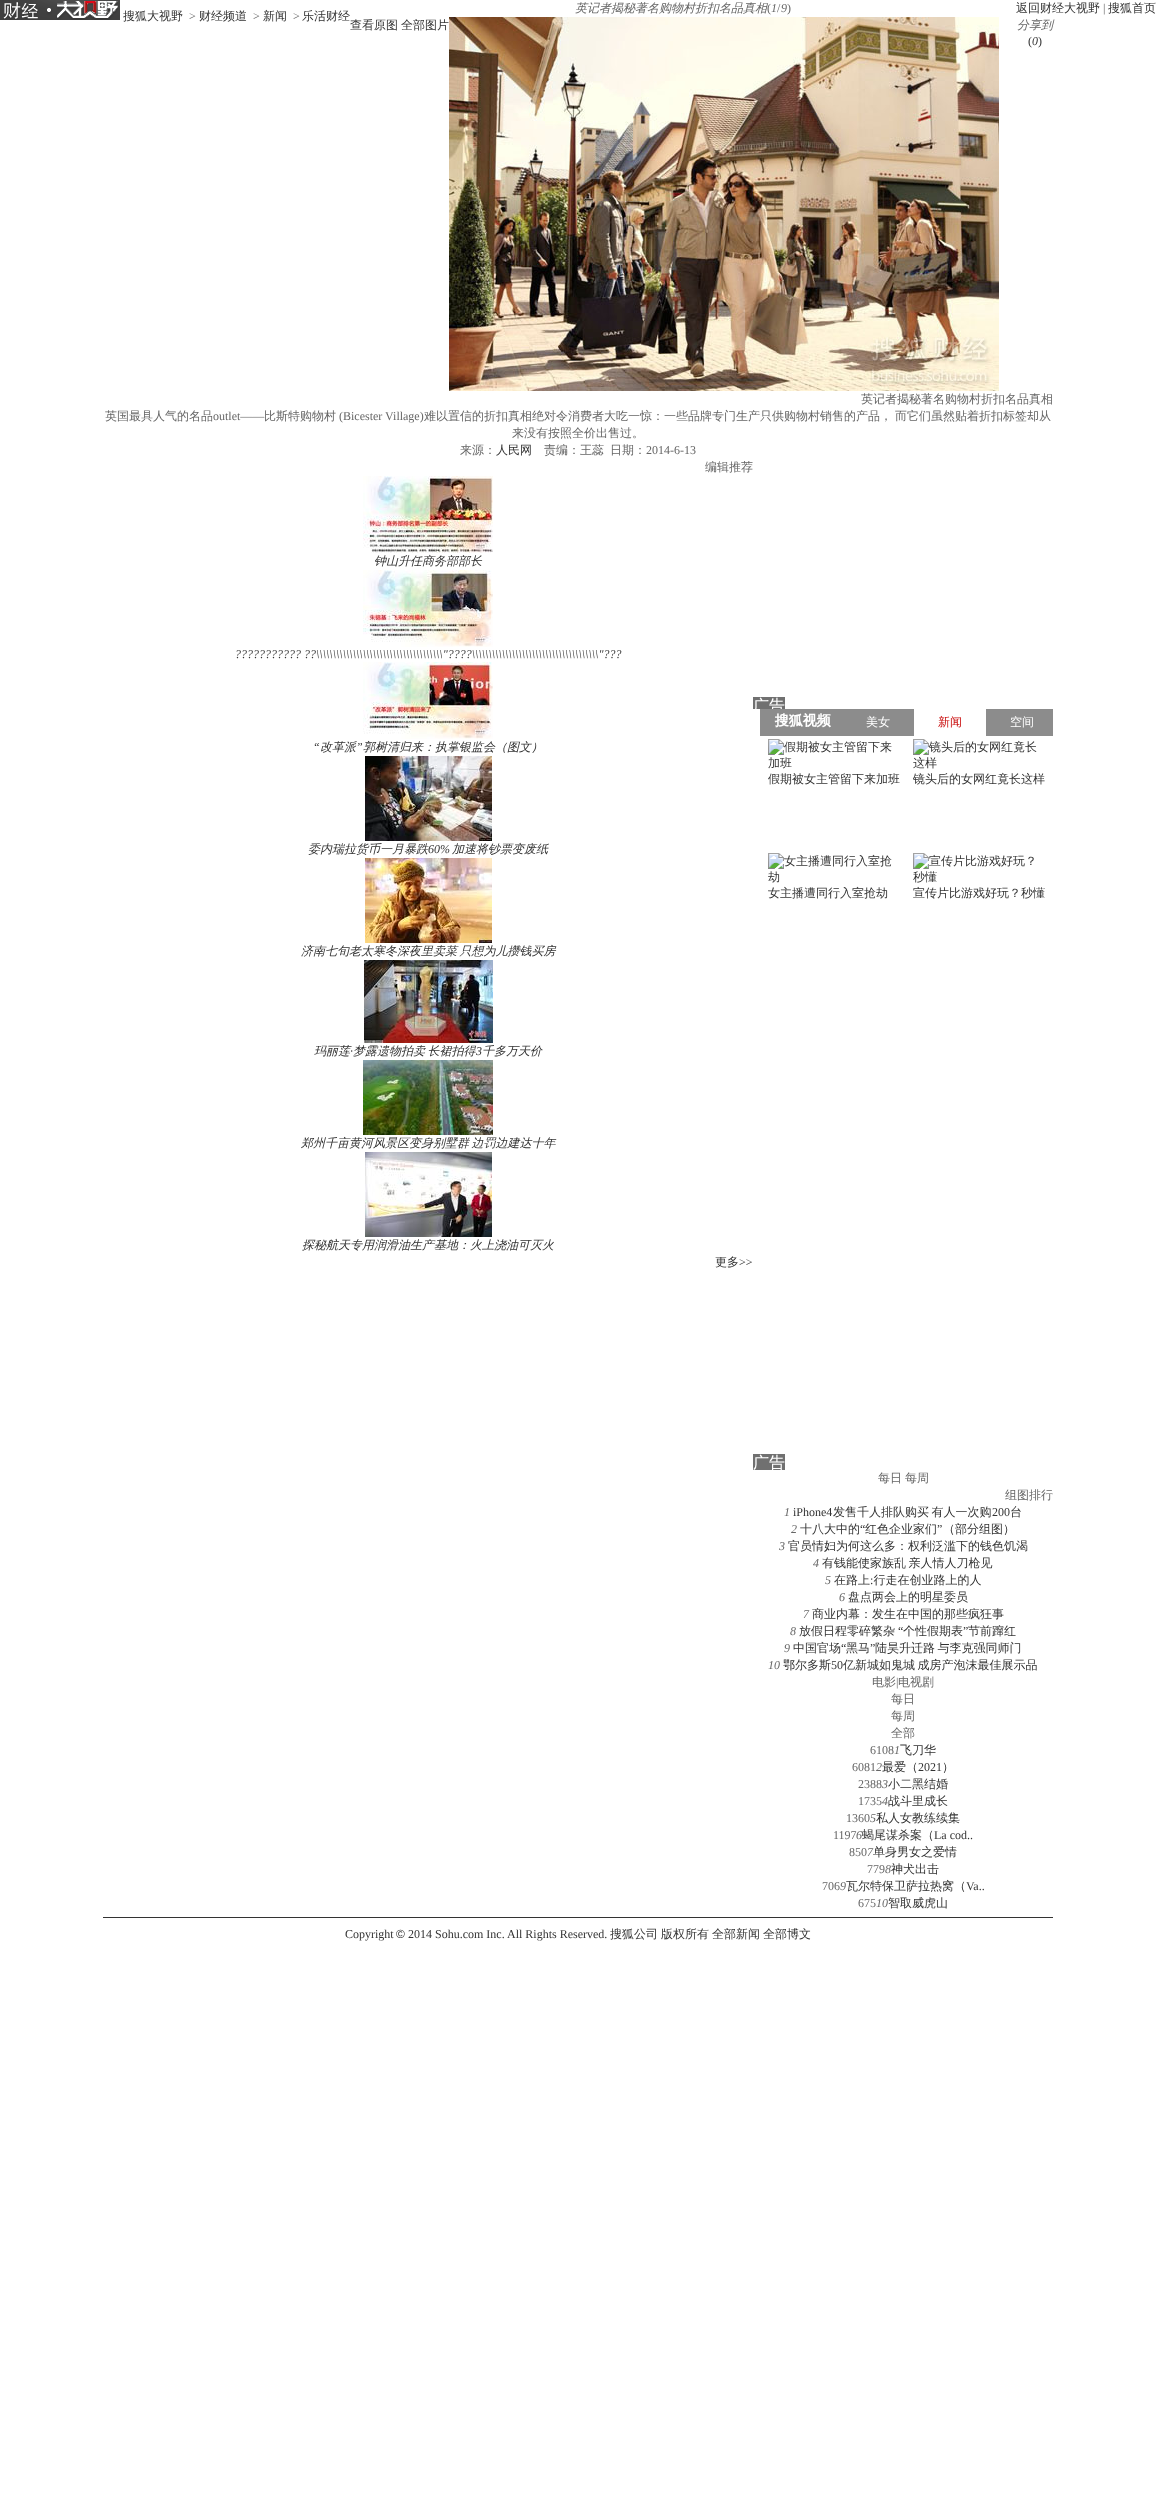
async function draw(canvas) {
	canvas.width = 1156;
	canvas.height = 2508;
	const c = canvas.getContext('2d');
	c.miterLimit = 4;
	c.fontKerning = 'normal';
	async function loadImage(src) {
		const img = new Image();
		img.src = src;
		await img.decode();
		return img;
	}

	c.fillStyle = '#fff';
	c.fillRect(0, 0, 1156, 2508);
	c.font = 'italic 500 12px WenQuanYi Zen Hei';
	c.fillStyle = '#666';
	c.fillText('英记者揭秘著名购物村折扣名品真相', 575, 12);
	c.font = '12px Liberation Serif';
	c.fillText('(', 767, 12);
	c.font = 'italic 12px Liberation Serif';
	c.fillText('1', 771, 12);
	c.font = '12px Liberation Serif';
	c.fillText('/', 777, 12);
	c.font = 'italic 12px Liberation Serif';
	c.fillText('9', 781, 12);
	c.font = '12px Liberation Serif';
	c.fillText(')', 787, 12);
	c.font = '500 12px WenQuanYi Zen Hei';
	c.fillStyle = '#333';
	c.fillText('查看原图', 350, 29);
	c.fillText('全部图片', 401, 29);
	c.font = 'italic 500 12px WenQuanYi Zen Hei';
	c.fillStyle = '#666';
	c.fillText('分享到', 1017, 29);
	c.font = '12px Liberation Serif';
	c.fillStyle = '#333';
	c.fillText('(', 1028, 45);
	c.font = 'italic 12px Liberation Serif';
	c.fillText('0', 1032, 45);
	c.font = '12px Liberation Serif';
	c.fillText(')', 1038, 45);
	c.drawImage(await loadImage('img1.png'), 449, 17, 550, 374);
	c.font = '500 12px WenQuanYi Zen Hei';
	c.fillStyle = '#666';
	c.fillText('英记者揭秘著名购物村折扣名品真相', 861, 403);
	c.fillText('英国最具人气的名品', 105, 420);
	c.font = '12px Liberation Serif';
	c.fillText('outlet——', 213, 420);
	c.font = '500 12px WenQuanYi Zen Hei';
	c.fillText('比斯特购物村', 264, 420);
	c.font = '12px Liberation Serif';
	c.fillText('(Bicester Village)', 339, 420);
	c.font = '500 12px WenQuanYi Zen Hei';
	for (const [text, x, y] of [
		['难以置信的折扣真相绝对令消费者大吃一惊：一些品牌专门生产只供购物村销售的产品，', 424, 420],
		['而它们虽然贴着折扣标签却从', 895, 420],
		['来没有按照全价出售过。', 512, 437],
		['来源：', 460, 454],
	]) {
		c.fillText(text, x, y);
	}
	c.fillStyle = '#333';
	c.fillText('人民网', 496, 454);
	c.fillStyle = '#666';
	c.fillText('责编：王蕊', 544, 454);
	c.fillText('日期：', 610, 454);
	c.font = '12px Liberation Serif';
	c.fillText('2014-6-13', 646, 454);
	c.drawImage(await loadImage('img2.png'), 0, 0, 120, 20);
	c.font = '500 12px WenQuanYi Zen Hei';
	c.fillStyle = '#333';
	c.fillText('搜狐大视野', 123, 20);
	c.font = '12px Liberation Serif';
	c.fillStyle = '#666';
	c.fillText('>', 189, 20);
	c.font = '500 12px WenQuanYi Zen Hei';
	c.fillStyle = '#333';
	c.fillText('财经频道', 199, 20);
	c.font = '12px Liberation Serif';
	c.fillStyle = '#666';
	c.fillText('>', 253, 20);
	c.font = '500 12px WenQuanYi Zen Hei';
	c.fillStyle = '#333';
	c.fillText('新闻', 263, 20);
	c.font = '12px Liberation Serif';
	c.fillStyle = '#666';
	c.fillText('>', 293, 20);
	c.font = '500 12px WenQuanYi Zen Hei';
	c.fillStyle = '#333';
	c.fillText('乐活财经', 302, 20);
	c.fillText('返回财经大视野', 1016, 12);
	c.font = '12px Liberation Serif';
	c.fillStyle = '#666';
	c.fillText('|', 1103, 12);
	c.font = '500 12px WenQuanYi Zen Hei';
	c.fillStyle = '#333';
	c.fillText('搜狐首页', 1108, 12);
	c.fillStyle = '#666';
	c.fillText('编辑推荐', 705, 471);
	c.drawImage(await loadImage('img3.png'), 363, 476, 130, 77);
	c.font = 'italic 500 12px WenQuanYi Zen Hei';
	c.fillStyle = '#333';
	c.fillText('钟山升任商务部部长', 374, 565);
	c.drawImage(await loadImage('img4.png'), 363, 570, 130, 77);
	c.font = 'italic 12px Liberation Serif';
	c.fillText('??????????? ??\\\\\\\\\\\\\\\\\\\\\\\\\\\\\\\\\\\\\\\\\\\\\\\\\\\\\\\\\\\\\\\\\\\\\\\\\\\\"????\\\\\\\\\\\\\\\\\\\\\\\\\\\\\\\\\\\\\\\\\\\\\\\\\\\\\\\\\\\\\\\\\\\\\\\\\\\\"???', 235, 658);
	c.drawImage(await loadImage('img5.png'), 363, 662, 130, 77);
	c.fillText('“', 313, 751);
	c.font = 'italic 500 12px WenQuanYi Zen Hei';
	c.fillText('改革派', 320, 751);
	c.font = 'italic 12px Liberation Serif';
	c.fillText('”', 356, 751);
	c.font = 'italic 500 12px WenQuanYi Zen Hei';
	c.fillText('郭树清归来：执掌银监会（图文）', 363, 751);
	c.drawImage(await loadImage('img6.png'), 365, 756, 127, 85);
	c.fillText('委内瑞拉货币一月暴跌', 308, 853);
	c.font = 'italic 12px Liberation Serif';
	c.fillText('60%', 428, 853);
	c.font = 'italic 500 12px WenQuanYi Zen Hei';
	c.fillText('加速将钞票变废纸', 452, 853);
	c.drawImage(await loadImage('img7.png'), 365, 858, 127, 85);
	c.wordSpacing = '-1px';
	c.fillText('济南七旬老太寒冬深夜里卖菜 只想为儿攒钱买房', 301, 955);
	c.drawImage(await loadImage('img8.png'), 364, 960, 129, 83);
	c.wordSpacing = '0px';
	c.fillText('玛丽莲', 314, 1055);
	c.wordSpacing = '-1px';
	c.fillText('梦露遗物拍卖 长裙拍得', 353, 1055);
	c.wordSpacing = '0px';
	c.font = 'italic 12px Liberation Serif';
	c.fillText('3', 476, 1055);
	c.font = 'italic 500 12px WenQuanYi Zen Hei';
	c.fillText('千多万天价', 482, 1055);
	c.font = 'italic 12px Liberation Serif';
	c.fillText('·', 350, 1055);
	c.drawImage(await loadImage('img9.png'), 363, 1060, 130, 75);
	c.wordSpacing = '-1px';
	c.font = 'italic 500 12px WenQuanYi Zen Hei';
	c.fillText('郑州千亩黄河风景区变身别墅群 边罚边建达十年', 301, 1147);
	c.drawImage(await loadImage('img10.png'), 365, 1152, 127, 85);
	c.wordSpacing = '0px';
	c.fillText('探秘航天专用润滑油生产基地：火上浇油可灭火', 302, 1249);
	c.font = '500 12px WenQuanYi Zen Hei';
	c.fillText('更多', 715, 1266);
	c.font = '12px Liberation Serif';
	c.fillText('>>', 739, 1266);
	c.drawImage(await loadImage('img11.png'), 753, 697, 32, 12);
	c.drawImage(await loadImage('img12.png'), 760, 709, 293, 190);
	c.drawImage(await loadImage('img13.png'), 753, 1454, 32, 16);
	c.font = '500 12px WenQuanYi Zen Hei';
	c.fillStyle = '#666';
	for (const [text, x, y] of [
		['每日', 878, 1482],
		['每周', 905, 1482],
		['组图排行', 1005, 1499],
	]) {
		c.fillText(text, x, y);
	}
	c.font = 'italic 12px Liberation Serif';
	c.fillText('1', 784, 1516);
	c.font = '12px Liberation Serif';
	c.fillStyle = '#333';
	c.fillText('iPhone4', 793, 1516);
	c.wordSpacing = '-1px';
	c.font = '500 12px WenQuanYi Zen Hei';
	c.fillText('发售千人排队购买 有人一次购', 833, 1516);
	c.wordSpacing = '0px';
	c.font = '12px Liberation Serif';
	c.fillText('200', 992, 1516);
	c.font = '500 12px WenQuanYi Zen Hei';
	c.fillText('台', 1010, 1516);
	c.font = 'italic 12px Liberation Serif';
	c.fillStyle = '#666';
	c.fillText('2', 791, 1533);
	c.font = '500 12px WenQuanYi Zen Hei';
	c.fillStyle = '#333';
	c.fillText('十八大中的', 800, 1533);
	c.font = '12px Liberation Serif';
	c.fillText('“', 860, 1533);
	c.font = '500 12px WenQuanYi Zen Hei';
	c.fillText('红色企业家们', 865, 1533);
	c.font = '12px Liberation Serif';
	c.fillText('”', 937, 1533);
	c.font = '500 12px WenQuanYi Zen Hei';
	c.fillText('（部分组图）', 943, 1533);
	c.font = 'italic 12px Liberation Serif';
	c.fillStyle = '#666';
	c.fillText('3', 779, 1550);
	c.font = '500 12px WenQuanYi Zen Hei';
	c.fillStyle = '#333';
	c.fillText('官员情妇为何这么多：权利泛滥下的钱色饥渴', 788, 1550);
	c.font = 'italic 12px Liberation Serif';
	c.fillStyle = '#666';
	c.fillText('4', 813, 1567);
	c.wordSpacing = '-1px';
	c.font = '500 12px WenQuanYi Zen Hei';
	c.fillStyle = '#333';
	c.fillText('有钱能使家族乱 亲人情人刀枪见', 822, 1567);
	c.wordSpacing = '0px';
	c.font = 'italic 12px Liberation Serif';
	c.fillStyle = '#666';
	c.fillText('5', 825, 1584);
	c.font = '500 12px WenQuanYi Zen Hei';
	c.fillStyle = '#333';
	c.fillText('在路上 行走在创业路上的人', 834, 1584);
	c.font = '12px Liberation Serif';
	c.fillText(':', 870, 1584);
	c.font = 'italic 12px Liberation Serif';
	c.fillStyle = '#666';
	c.fillText('6', 839, 1601);
	c.font = '500 12px WenQuanYi Zen Hei';
	c.fillStyle = '#333';
	c.fillText('盘点两会上的明星委员', 848, 1601);
	c.font = 'italic 12px Liberation Serif';
	c.fillStyle = '#666';
	c.fillText('7', 803, 1618);
	c.font = '500 12px WenQuanYi Zen Hei';
	c.fillStyle = '#333';
	c.fillText('商业内幕：发生在中国的那些疯狂事', 812, 1618);
	c.font = 'italic 12px Liberation Serif';
	c.fillStyle = '#666';
	c.fillText('8', 790, 1635);
	c.font = '500 12px WenQuanYi Zen Hei';
	c.fillStyle = '#333';
	c.fillText('放假日程零碎繁杂', 799, 1635);
	c.font = '12px Liberation Serif';
	c.fillText('“', 898, 1635);
	c.font = '500 12px WenQuanYi Zen Hei';
	c.fillText('个性假期表', 903, 1635);
	c.font = '12px Liberation Serif';
	c.fillText('”', 963, 1635);
	c.font = '500 12px WenQuanYi Zen Hei';
	c.fillText('节前蹿红', 968, 1635);
	c.font = 'italic 12px Liberation Serif';
	c.fillStyle = '#666';
	c.fillText('9', 784, 1652);
	c.font = '500 12px WenQuanYi Zen Hei';
	c.fillStyle = '#333';
	c.fillText('中国官场', 793, 1652);
	c.font = '12px Liberation Serif';
	c.fillText('“', 841, 1652);
	c.font = '500 12px WenQuanYi Zen Hei';
	c.fillText('黑马', 846, 1652);
	c.font = '12px Liberation Serif';
	c.fillText('”', 870, 1652);
	c.wordSpacing = '-1px';
	c.font = '500 12px WenQuanYi Zen Hei';
	c.fillText('陆昊升迁路 与李克强同师门', 875, 1652);
	c.wordSpacing = '0px';
	c.font = 'italic 12px Liberation Serif';
	c.fillStyle = '#666';
	c.fillText('10', 768, 1669);
	c.font = '500 12px WenQuanYi Zen Hei';
	c.fillStyle = '#333';
	c.fillText('鄂尔多斯', 783, 1669);
	c.font = '12px Liberation Serif';
	c.fillText('50', 831, 1669);
	c.wordSpacing = '-1px';
	c.font = '500 12px WenQuanYi Zen Hei';
	c.fillText('亿新城如鬼城 成房产泡沫最佳展示品', 843, 1669);
	c.wordSpacing = '0px';
	c.fillStyle = '#666';
	c.fillText('电影', 872, 1686);
	c.font = '12px Liberation Serif';
	c.fillText('|', 896, 1686);
	c.font = '500 12px WenQuanYi Zen Hei';
	for (const [text, x, y] of [
		['电视剧', 898, 1686],
		['每日', 891, 1703],
		['每周', 891, 1720],
		['全部', 891, 1737],
	]) {
		c.fillText(text, x, y);
	}
	c.font = '12px Liberation Serif';
	c.fillText('6108', 870, 1754);
	c.font = 'italic 12px Liberation Serif';
	c.fillText('1', 894, 1754);
	c.font = '500 12px WenQuanYi Zen Hei';
	c.fillStyle = '#333';
	c.fillText('飞刀华', 900, 1754);
	c.font = '12px Liberation Serif';
	c.fillStyle = '#666';
	c.fillText('6081', 852, 1771);
	c.font = 'italic 12px Liberation Serif';
	c.fillText('2', 876, 1771);
	c.font = '500 12px WenQuanYi Zen Hei';
	c.fillStyle = '#333';
	c.fillText('最爱（', 882, 1771);
	c.font = '12px Liberation Serif';
	c.fillText('2021', 918, 1771);
	c.font = '500 12px WenQuanYi Zen Hei';
	c.fillText('）', 942, 1771);
	c.font = '12px Liberation Serif';
	c.fillStyle = '#666';
	c.fillText('2388', 858, 1788);
	c.font = 'italic 12px Liberation Serif';
	c.fillText('3', 882, 1788);
	c.font = '500 12px WenQuanYi Zen Hei';
	c.fillStyle = '#333';
	c.fillText('小二黑结婚', 888, 1788);
	c.font = '12px Liberation Serif';
	c.fillStyle = '#666';
	c.fillText('1735', 858, 1805);
	c.font = 'italic 12px Liberation Serif';
	c.fillText('4', 882, 1805);
	c.font = '500 12px WenQuanYi Zen Hei';
	c.fillStyle = '#333';
	c.fillText('战斗里成长', 888, 1805);
	c.font = '12px Liberation Serif';
	c.fillStyle = '#666';
	c.fillText('1360', 846, 1822);
	c.font = 'italic 12px Liberation Serif';
	c.fillText('5', 870, 1822);
	c.font = '500 12px WenQuanYi Zen Hei';
	c.fillStyle = '#333';
	c.fillText('私人女教练续集', 876, 1822);
	c.font = '12px Liberation Serif';
	c.fillStyle = '#666';
	c.fillText('1197', 833, 1839);
	c.font = 'italic 12px Liberation Serif';
	c.fillText('6', 856, 1839);
	c.font = '500 12px WenQuanYi Zen Hei';
	c.fillStyle = '#333';
	c.fillText('蝎尾谋杀案（', 862, 1839);
	c.font = '12px Liberation Serif';
	c.fillText('La cod..', 934, 1839);
	c.fillStyle = '#666';
	c.fillText('850', 849, 1856);
	c.font = 'italic 12px Liberation Serif';
	c.fillText('7', 867, 1856);
	c.font = '500 12px WenQuanYi Zen Hei';
	c.fillStyle = '#333';
	c.fillText('单身男女之爱情', 873, 1856);
	c.font = '12px Liberation Serif';
	c.fillStyle = '#666';
	c.fillText('779', 867, 1873);
	c.font = 'italic 12px Liberation Serif';
	c.fillText('8', 885, 1873);
	c.font = '500 12px WenQuanYi Zen Hei';
	c.fillStyle = '#333';
	c.fillText('神犬出击', 891, 1873);
	c.font = '12px Liberation Serif';
	c.fillStyle = '#666';
	c.fillText('706', 822, 1890);
	c.font = 'italic 12px Liberation Serif';
	c.fillText('9', 840, 1890);
	c.font = '500 12px WenQuanYi Zen Hei';
	c.fillStyle = '#333';
	c.fillText('瓦尔特保卫萨拉热窝（', 846, 1890);
	c.font = '12px Liberation Serif';
	c.fillText('Va..', 966, 1890);
	c.fillStyle = '#666';
	c.fillText('675', 858, 1907);
	c.font = 'italic 12px Liberation Serif';
	c.fillText('10', 876, 1907);
	c.font = '500 12px WenQuanYi Zen Hei';
	c.fillStyle = '#333';
	c.fillText('智取威虎山', 888, 1907);
	c.fillRect(103, 1917, 950, 1);
	c.font = '12px Liberation Serif';
	c.fillText('Copyright', 345, 1938);
	c.font = '12px Liberation Sans';
	c.fillText('©', 396, 1938);
	c.font = '12px Liberation Serif';
	c.fillText('2014 Sohu.com Inc. All Rights Reserved.', 408, 1938);
	c.font = '500 12px WenQuanYi Zen Hei';
	for (const [text, x, y] of [
		['搜狐公司', 610, 1938],
		['版权所有', 661, 1938],
		['全部新闻', 712, 1938],
		['全部博文', 763, 1938],
	]) {
		c.fillText(text, x, y);
	}
}

draw(document.querySelector('canvas'));
